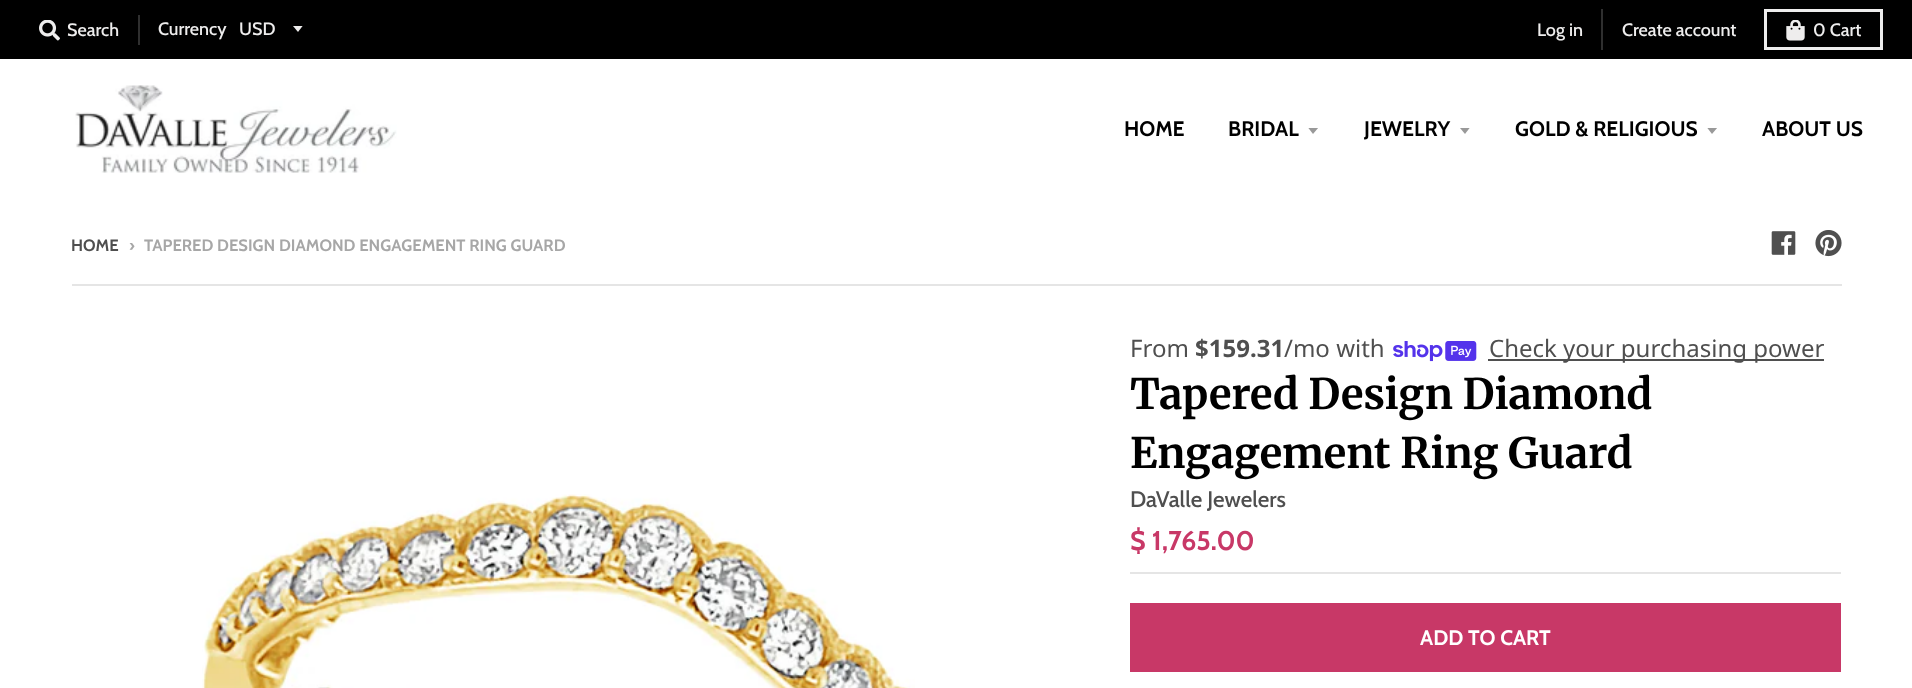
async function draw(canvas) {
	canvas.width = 1912;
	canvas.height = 688;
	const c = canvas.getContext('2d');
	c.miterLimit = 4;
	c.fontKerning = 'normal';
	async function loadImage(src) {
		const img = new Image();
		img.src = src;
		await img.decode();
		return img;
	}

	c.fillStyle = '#fff';
	c.fillRect(0, 0, 1912, 688);
	c.fillStyle = '#000';
	c.fillRect(0, 0, 1912, 59);
	c.drawImage(await loadImage('img1.png'), 39, 20, 21, 21);
	c.font = '500 18px Cabin';
	c.fillStyle = '#eeeded';
	c.fillText('Search', 67, 36);
	c.fillStyle = '#2f2f2f';
	c.fillRect(138, 15, 2, 30);
	c.fillStyle = '#eeeded';
	c.fillText('Currency', 158, 35);
	c.save();
	c.beginPath();
	c.rect(293, 26, 12, 7);
	c.clip();
	c.beginPath();
	c.moveTo(292.5, 25.5);
	c.lineTo(298, 32);
	c.lineTo(303, 25.5);
	c.closePath();
	c.fill();
	c.restore();
	c.fillText('USD', 239, 35);
	c.fillStyle = '#2f2f2f';
	c.fillRect(1601, 9, 2, 41);
	c.fillStyle = '#eeeded';
	c.fillText('Log in', 1537, 36);
	c.fillText('Create account', 1622, 36);
	c.strokeStyle = '#eeeded';
	c.lineWidth = 3;
	c.strokeRect(1765.5, 10.5, 116, 38);
	c.drawImage(await loadImage('img2.png'), 1786, 20, 19, 21);
	c.fillText('0 Cart', 1813, 36);
	c.drawImage(await loadImage('img3.png'), 75, 85, 322, 88);
	c.font = 'bold 21px Cabin';
	c.fillStyle = '#000';
	c.fillText('HOME', 1124, 136);
	c.fillText('BRIDAL', 1228, 136);
	c.save();
	c.beginPath();
	c.rect(1308, 128, 12, 7);
	c.clip();
	c.fillStyle = '#999';
	c.beginPath();
	c.moveTo(1308, 127.5);
	c.lineTo(1313, 134);
	c.lineTo(1318.5, 127.5);
	c.closePath();
	c.fill();
	c.restore();
	c.fillText('JEWELRY', 1364, 136);
	c.save();
	c.beginPath();
	c.rect(1460, 128, 12, 7);
	c.clip();
	c.fillStyle = '#999';
	c.beginPath();
	c.moveTo(1459.5, 127.5);
	c.lineTo(1465, 134);
	c.lineTo(1470, 127.5);
	c.closePath();
	c.fill();
	c.restore();
	c.fillText('GOLD & RELIGIOUS', 1515, 136);
	c.save();
	c.beginPath();
	c.rect(1707, 128, 12, 7);
	c.clip();
	c.fillStyle = '#999';
	c.beginPath();
	c.moveTo(1707, 127.5);
	c.lineTo(1712, 134);
	c.lineTo(1717.5, 127.5);
	c.closePath();
	c.fill();
	c.restore();
	c.fillText('ABOUT US', 1762, 136);
	c.font = 'bold 16.5px Cabin';
	c.fillStyle = '#4f4f4f';
	c.fillText('HOME', 71, 251);
	c.fillStyle = '#a7a7a7';
	c.fillText('›', 129, 251);
	c.fillText('TAPERED DESIGN DIAMOND ENGAGEMENT RING GUARD', 144, 251);
	c.drawImage(await loadImage('img4.png'), 1771, 231, 25, 24);
	c.drawImage(await loadImage('img5.png'), 1815, 230, 27, 27);
	c.fillStyle = '#e5e5e5';
	c.fillRect(72, 284, 1770, 2);
	c.drawImage(await loadImage('img6.png'), 202, 494, 713, 194);
	c.font = '24px Noto Sans';
	c.fillStyle = '#4f4f4f';
	c.fillText('From', 1130, 357);
	c.font = 'bold 24px Noto Sans';
	c.fillText('$159.31', 1195, 357);
	c.font = '24px Noto Sans';
	c.fillText('/mo with', 1284, 357);
	c.drawImage(await loadImage('img7.png'), 1393, 341, 84, 21);
	c.fillRect(1488, 359, 336, 2);
	c.fillText('Check your purchasing power', 1489, 357);
	c.font = 'bold 42px Merriweather';
	c.fillStyle = '#000';
	c.fillText('Tapered Design Diamond', 1130, 409);
	c.fillText('Engagement Ring Guard', 1130, 468);
	c.font = '500 22.5px Cabin';
	c.fillStyle = '#4f4f4f';
	c.fillText('DaValle Jewelers', 1130, 507);
	c.fillStyle = '#e5e5e5';
	c.fillRect(1130, 572, 711, 2);
	c.font = 'bold 27px Cabin';
	c.fillStyle = '#c83867';
	c.fillText('$ 1,765.00', 1130, 550);
	c.fillRect(1130, 603, 711, 69);
	c.font = 'bold 21px Cabin';
	c.fillStyle = '#fff';
	c.fillText('ADD TO CART', 1420, 645);
}

draw(document.querySelector('canvas'));
